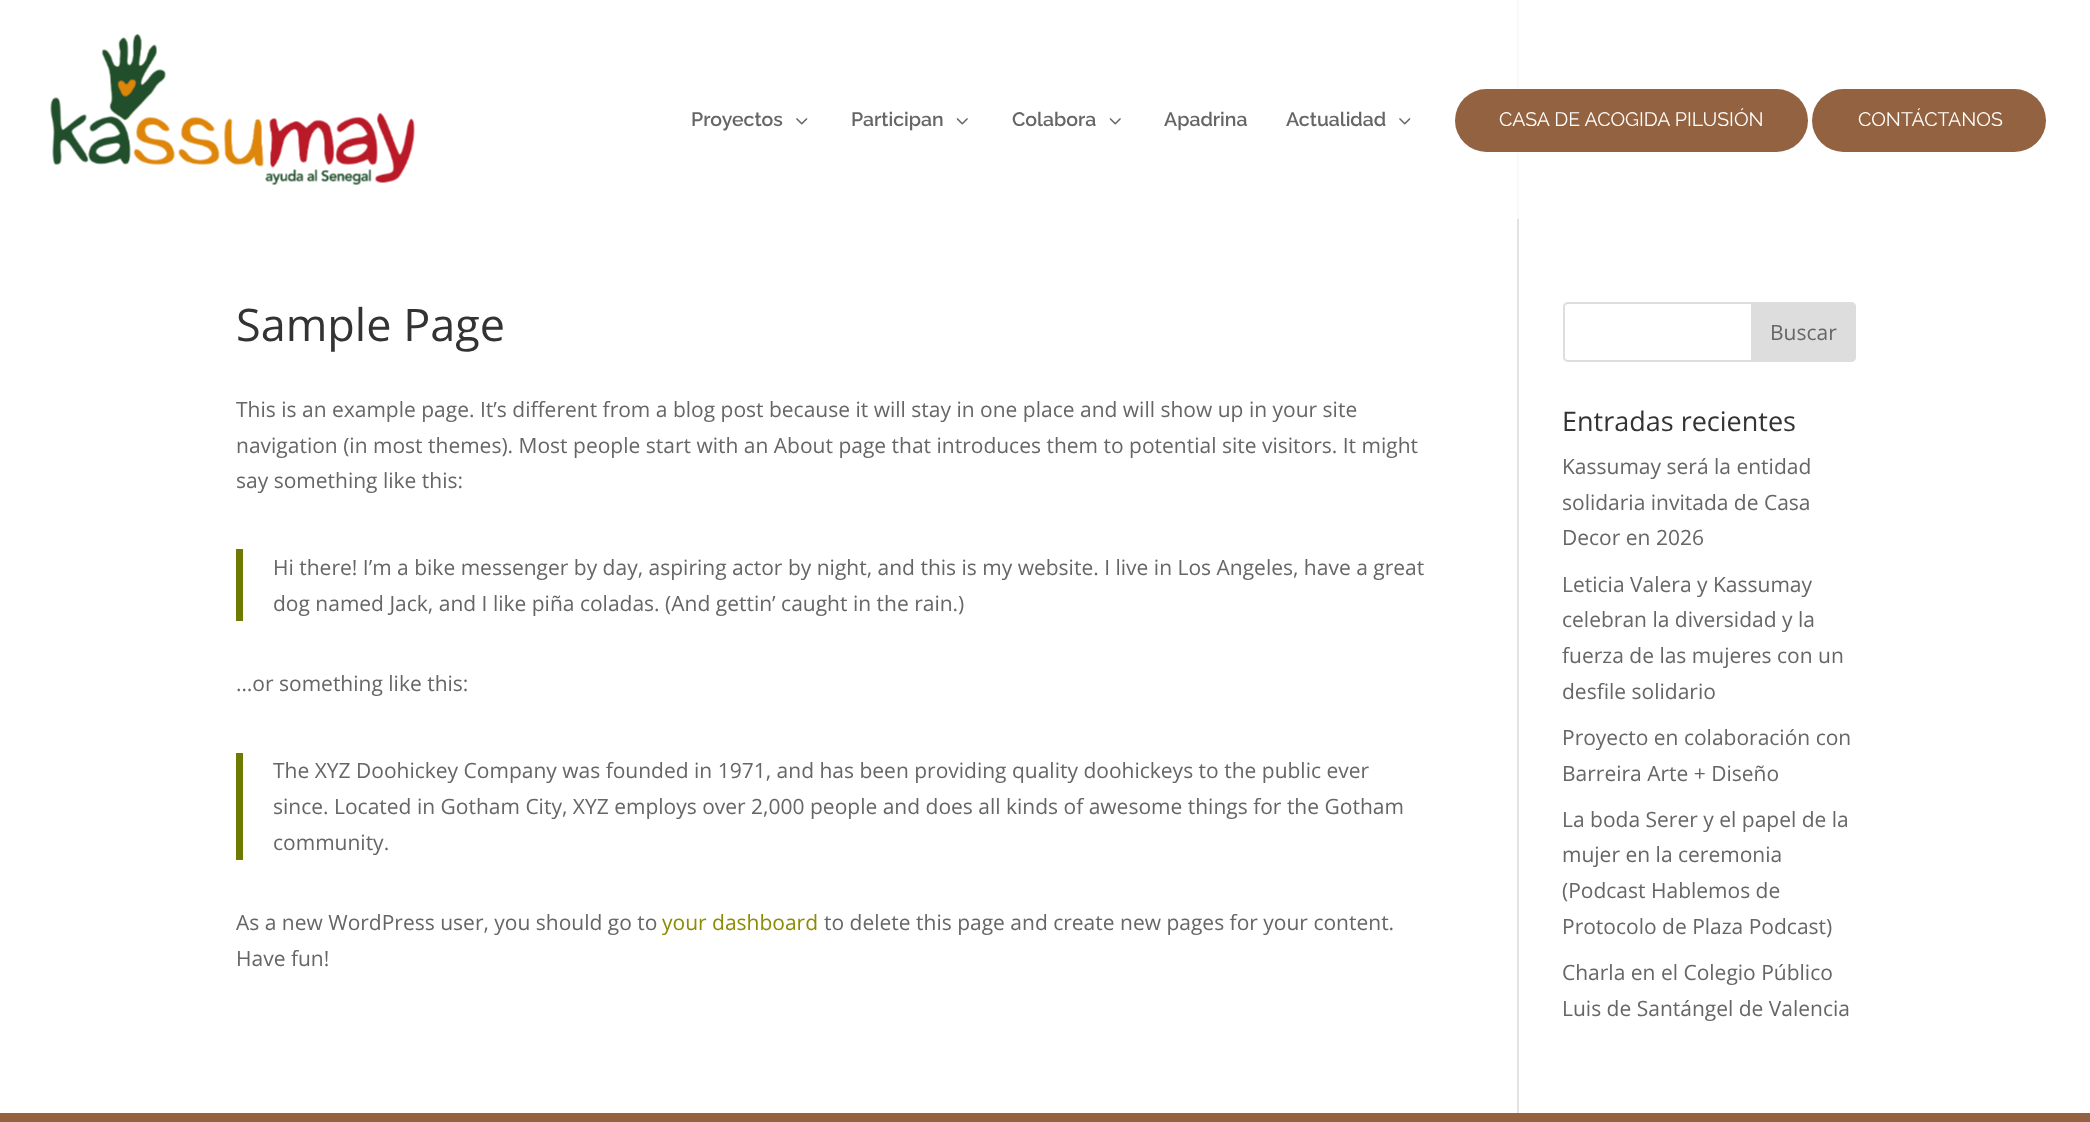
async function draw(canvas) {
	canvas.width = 2090;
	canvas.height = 1122;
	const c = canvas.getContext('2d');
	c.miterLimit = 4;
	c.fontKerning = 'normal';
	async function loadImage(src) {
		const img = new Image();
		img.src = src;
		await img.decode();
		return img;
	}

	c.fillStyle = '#fff';
	c.fillRect(0, 0, 2090, 1122);
	c.drawImage(await loadImage('img1.png'), 50, 34, 365, 151);
	c.font = '100 19.5px Raleway';
	c.fillStyle = '#666';
	c.fillText('Proyectos', 691, 126);
	c.drawImage(await loadImage('img2.png'), 796, 118, 12, 7);
	c.fillText('Participan', 851, 126);
	c.drawImage(await loadImage('img3.png'), 956, 118, 12, 7);
	c.fillText('Colabora', 1012, 126);
	c.drawImage(await loadImage('img3.png'), 1109, 118, 12, 7);
	c.fillText('Apadrina', 1164, 126);
	c.fillText('Actualidad', 1286, 126);
	c.drawImage(await loadImage('img2.png'), 1399, 118, 12, 7);
	c.fillStyle = '#f9f9f9';
	c.fillRect(1517, 0, 2, 219);
	c.fillStyle = '#936240';
	c.beginPath();
	c.roundRect(1455, 89, 353, 63, 31.5);
	c.fill();
	c.font = '100 19.5px "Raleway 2"';
	c.fillStyle = '#fff';
	c.fillText('CASA DE ACOGIDA PILUSIÓN', 1499, 126);
	c.fillStyle = '#936240';
	c.beginPath();
	c.roundRect(1812, 89, 234, 63, 31.5);
	c.fill();
	c.fillStyle = '#fff';
	c.fillText('CONTÁCTANOS', 1858, 126);
	c.fillStyle = '#e2e2e2';
	c.fillRect(1517, 219, 2, 894);
	c.font = '45px Open Sans';
	c.fillStyle = '#333';
	c.fillText('Sample Page', 236, 341);
	c.font = '21px Open Sans';
	c.fillStyle = '#666';
	for (const [text, x, y] of [
		['This is an example page. It’s different from a blog post because it will stay in one place and will show up in your site', 236, 417],
		['navigation (in most themes). Most people start with an About page that introduces them to potential site visitors. It might', 236, 453],
		['say something like this:', 236, 488],
	]) {
		c.fillText(text, x, y);
	}
	c.fillStyle = '#6e7a02';
	c.fillRect(236, 549, 7, 72);
	c.fillStyle = '#666';
	for (const [text, x, y] of [
		['Hi there! I’m a bike messenger by day, aspiring actor by night, and this is my website. I live in Los Angeles, have a great', 273, 575],
		['dog named Jack, and I like piña coladas. (And gettin’ caught in the rain.)', 273, 611],
		['…or something like this:', 236, 691],
	]) {
		c.fillText(text, x, y);
	}
	c.fillStyle = '#6e7a02';
	c.fillRect(236, 753, 7, 107);
	c.fillStyle = '#666';
	for (const [text, x, y] of [
		['The XYZ Doohickey Company was founded in 1971, and has been providing quality doohickeys to the public ever', 273, 778],
		['since. Located in Gotham City, XYZ employs over 2,000 people and does all kinds of awesome things for the Gotham', 273, 814],
		['community.', 273, 850],
		['As a new WordPress user, you should go to', 236, 930],
	]) {
		c.fillText(text, x, y);
	}
	c.fillStyle = '#8c8c04';
	c.fillText('your dashboard', 662, 930);
	c.fillStyle = '#666';
	c.fillText('to delete this page and create new pages for your content.', 824, 930);
	c.fillText('Have fun!', 236, 966);
	c.beginPath();
	c.roundRect(1564, 303, 291, 58, 4);
	c.strokeStyle = '#ddd';
	c.lineWidth = 2;
	c.stroke();
	c.fillStyle = '#ddd';
	c.beginPath();
	c.roundRect(1752, 303, 103, 58, [0, 4, 4, 0]);
	c.fill();
	c.stroke();
	c.fillStyle = '#666';
	c.fillText('Buscar', 1770, 340);
	c.font = '27px Open Sans';
	c.fillStyle = '#333';
	c.fillText('Entradas recientes', 1562, 431);
	c.font = '21px Open Sans';
	c.fillStyle = '#666';
	for (const [text, x, y] of [
		['Kassumay será la entidad', 1562, 474],
		['solidaria invitada de Casa', 1562, 510],
		['Decor en 2026', 1562, 545],
		['Leticia Valera y Kassumay', 1562, 592],
		['celebran la diversidad y la', 1562, 627],
		['fuerza de las mujeres con un', 1562, 663],
		['desfile solidario', 1562, 699],
		['Proyecto en colaboración con', 1562, 745],
		['Barreira Arte + Diseño', 1562, 781],
		['La boda Serer y el papel de la', 1562, 827],
		['mujer en la ceremonia', 1562, 862],
		['(Podcast Hablemos de', 1562, 898],
		['Protocolo de Plaza Podcast)', 1562, 934],
		['Charla en el Colegio Público', 1562, 980],
		['Luis de Santángel de Valencia', 1562, 1016],
	]) {
		c.fillText(text, x, y);
	}
	c.fillStyle = '#936240';
	c.fillRect(0, 1113, 2090, 9);
}

draw(document.querySelector('canvas'));
